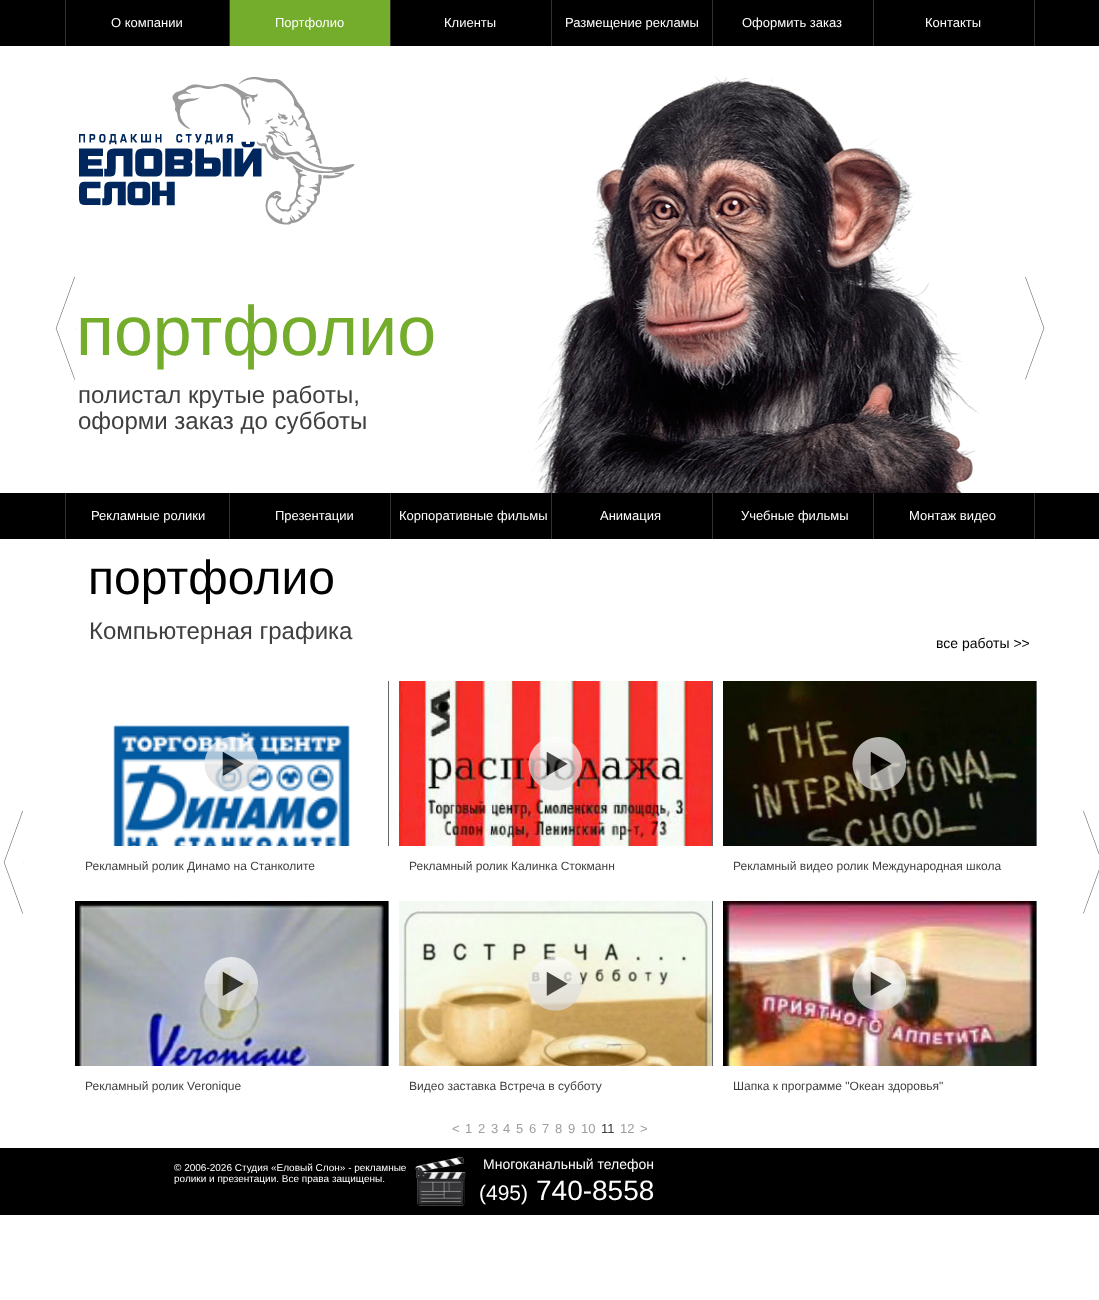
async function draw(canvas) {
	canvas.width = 1099;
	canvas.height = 1300;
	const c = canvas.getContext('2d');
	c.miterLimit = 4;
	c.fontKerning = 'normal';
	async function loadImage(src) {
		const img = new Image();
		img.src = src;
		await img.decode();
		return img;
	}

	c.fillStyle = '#fff';
	c.fillRect(0, 0, 1099, 1300);
	for (const [x, y, w, h, color] of [
		[0, 0, 1099, 46, '#000'],
		[229, 0, 1, 46, '#313131'],
		[65, 0, 1, 46, '#313131'],
	]) {
		c.fillStyle = color;
		c.fillRect(x, y, w, h);
	}
	c.font = '13px Liberation Sans';
	c.fillStyle = '#fff';
	c.fillText('О компании', 111, 27);
	c.fillStyle = '#313131';
	c.fillRect(390, 0, 1, 46);
	c.fillStyle = '#74ac2c';
	c.fillRect(230, 0, 160, 46);
	c.fillStyle = '#fff';
	c.fillText('Портфолио', 275, 27);
	c.fillStyle = '#313131';
	c.fillRect(551, 0, 1, 46);
	c.fillStyle = '#fff';
	c.fillText('Клиенты', 444, 27);
	c.fillStyle = '#313131';
	c.fillRect(712, 0, 1, 46);
	c.fillStyle = '#fff';
	c.fillText('Размещение рекламы', 565, 27);
	c.fillStyle = '#313131';
	c.fillRect(873, 0, 1, 46);
	c.fillStyle = '#fff';
	c.fillText('Оформить заказ', 742, 27);
	c.fillStyle = '#313131';
	c.fillRect(1034, 0, 1, 46);
	c.fillStyle = '#fff';
	c.fillText('Контакты', 925, 27);
	c.drawImage(await loadImage('img1.png'), 79, 77, 276, 148);
	c.drawImage(await loadImage('img2.png'), 55, 276, 21, 104);
	c.font = '70px Liberation Sans';
	c.fillStyle = '#74ac2c';
	c.fillText('портфолио', 76, 355);
	c.drawImage(await loadImage('img3.png'), 532, 76, 447, 417);
	c.font = '24px Liberation Sans';
	c.fillStyle = '#3f3f3f';
	c.fillText('полистал крутые работы,', 78, 403);
	c.fillText('оформи заказ до субботы', 78, 429);
	c.drawImage(await loadImage('img4.png'), 1025, 276, 20, 104);
	c.fillStyle = '#000';
	c.fillRect(0, 493, 1099, 46);
	c.drawImage(await loadImage('img5.png'), 65, 493, 970, 46);
	c.font = '13px Liberation Sans';
	c.fillStyle = '#fff';
	for (const [text, x, y] of [
		['Рекламные ролики', 91, 520],
		['Презентации', 275, 520],
		['Корпоративные фильмы', 399, 520],
		['Анимация', 600, 520],
		['Учебные фильмы', 741, 520],
		['Монтаж видео', 909, 520],
	]) {
		c.fillText(text, x, y);
	}
	c.font = '48px Liberation Sans';
	c.fillStyle = '#000';
	c.fillText('портфолио', 88, 594);
	c.font = '24px Liberation Sans';
	c.fillStyle = '#3f3f3f';
	c.fillText('Компьютерная графика', 89, 639);
	c.font = '14px Liberation Sans';
	c.fillStyle = '#000';
	c.fillText('все работы >>', 936, 648);
	c.drawImage(await loadImage('img2.png'), 3, 810, 21, 104);
	c.drawImage(await loadImage('img6.png'), 1083, 810, 16, 104);
	c.fillStyle = '#5f676b';
	c.fillRect(388, 681, 1, 165);
	c.drawImage(await loadImage('img7.png'), 75, 681, 313, 165);
	c.drawImage(await loadImage('img8.png'), 204, 737, 54, 54);
	c.font = '12px Liberation Sans';
	c.fillStyle = '#3f3f3f';
	c.fillText('Рекламный ролик Динамо на Станколите', 85, 870);
	c.fillStyle = '#5f676b';
	c.fillRect(712, 681, 1, 165);
	c.drawImage(await loadImage('img9.png'), 399, 681, 313, 165);
	c.drawImage(await loadImage('img10.png'), 528, 737, 54, 54);
	c.fillStyle = '#3f3f3f';
	c.fillText('Рекламный ролик Калинка Стокманн', 409, 870);
	c.fillStyle = '#5f676b';
	c.fillRect(1036, 681, 1, 165);
	c.drawImage(await loadImage('img11.png'), 723, 681, 313, 165);
	c.drawImage(await loadImage('img12.png'), 852, 737, 54, 54);
	c.fillStyle = '#3f3f3f';
	c.fillText('Рекламный видео ролик Международная школа', 733, 870);
	c.fillStyle = '#5f676b';
	c.fillRect(388, 901, 1, 165);
	c.drawImage(await loadImage('img13.png'), 75, 901, 313, 165);
	c.drawImage(await loadImage('img14.png'), 204, 957, 54, 54);
	c.fillStyle = '#3f3f3f';
	c.fillText('Рекламный ролик Veronique', 85, 1090);
	c.fillStyle = '#5f676b';
	c.fillRect(712, 901, 1, 165);
	c.drawImage(await loadImage('img15.png'), 399, 901, 313, 165);
	c.drawImage(await loadImage('img16.png'), 528, 957, 54, 54);
	c.fillStyle = '#3f3f3f';
	c.fillText('Видео заставка Встреча в субботу', 409, 1090);
	c.fillStyle = '#5f676b';
	c.fillRect(1036, 901, 1, 165);
	c.drawImage(await loadImage('img17.png'), 723, 901, 313, 165);
	c.drawImage(await loadImage('img18.png'), 852, 957, 54, 54);
	c.fillStyle = '#3f3f3f';
	c.fillText('Шапка к программе "Океан здоровья"', 733, 1090);
	c.font = '13px Liberation Sans';
	c.fillStyle = '#9e9e9e';
	for (const [text, x, y] of [
		['<', 452, 1133],
		['1', 465, 1133],
		['2', 478, 1133],
		['3', 491, 1133],
		['4', 503, 1133],
		['5', 516, 1133],
		['6', 529, 1133],
		['7', 542, 1133],
		['8', 555, 1133],
		['9', 568, 1133],
		['10', 581, 1133],
	]) {
		c.fillText(text, x, y);
	}
	c.fillStyle = '#3f3f3f';
	c.fillText('11', 601, 1133);
	c.fillStyle = '#9e9e9e';
	c.fillText('12', 620, 1133);
	c.fillText('>', 640, 1133);
	c.fillStyle = '#000';
	c.fillRect(0, 1148, 1099, 67);
	c.font = '10px Liberation Sans';
	c.fillStyle = '#fff';
	c.fillText('© 2006-2026 Студия «Еловый Слон» - рекламные', 174, 1171);
	c.fillText('ролики и презентации. Все права защищены.', 174, 1182);
	c.drawImage(await loadImage('img19.png'), 415, 1157, 51, 49);
	c.font = '14px Liberation Sans';
	c.fillText('Многоканальный телефон', 483, 1169);
	c.font = '21px Liberation Sans';
	c.fillText('(495)', 479, 1200);
	c.font = '28px Liberation Sans';
	c.fillText('740-8558', 536, 1200);
}

draw(document.querySelector('canvas'));
